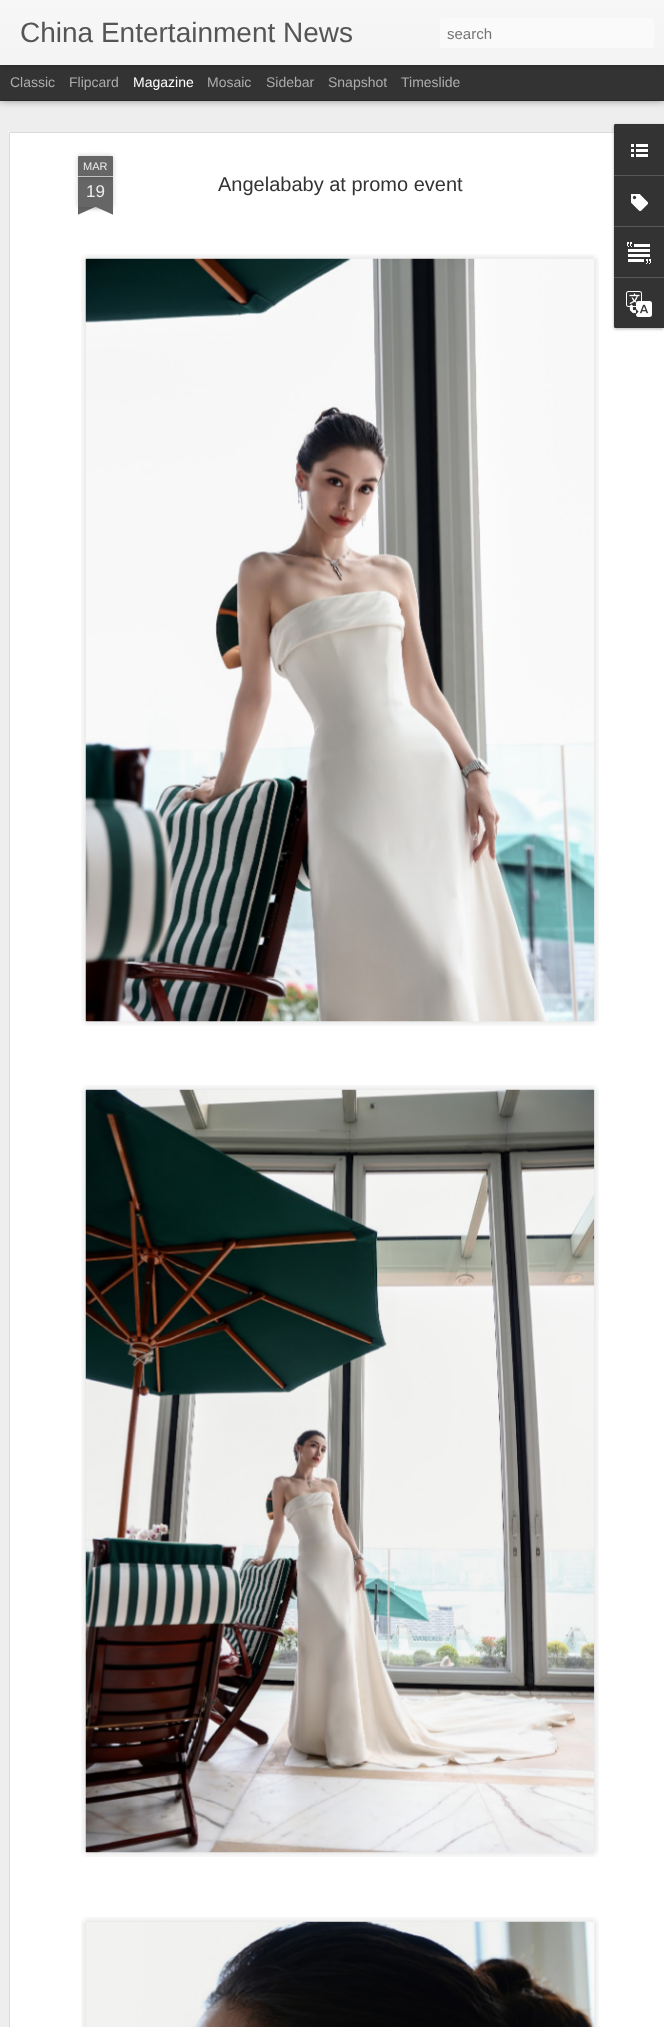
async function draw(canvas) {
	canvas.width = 664;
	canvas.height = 2027;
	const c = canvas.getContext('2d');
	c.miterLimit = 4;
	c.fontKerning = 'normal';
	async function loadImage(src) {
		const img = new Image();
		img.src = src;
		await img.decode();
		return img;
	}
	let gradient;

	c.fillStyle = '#333';
	c.fillRect(0, 0, 664, 2027);
	c.fillStyle = '#eee';
	c.fillRect(0, 101, 664, 1926);
	c.fillStyle = '#00000080';
	c.filter = 'blur(4px)';
	c.beginPath();
	c.rect(0, 65, 664, 35);
	c.fill();
	c.filter = 'none';
	c.fillStyle = '#333';
	c.fillRect(0, 65, 664, 35);
	c.fillStyle = '#0000004d';
	c.filter = 'blur(2.5px)';
	c.beginPath();
	c.rect(0, 0, 664, 65);
	c.fill();
	c.filter = 'none';
	gradient = c.createLinearGradient(0, 0, 0, 65);
	gradient.addColorStop(0, '#f7f7f7');
	gradient.addColorStop(1, '#f4f4f4');
	c.fillStyle = gradient;
	c.fillRect(0, 0, 664, 65);
	c.font = '28px Liberation Sans';
	c.fillStyle = '#555';
	c.fillText('China Entertainment News', 20, 42);
	c.fillStyle = '#fafafa';
	c.beginPath();
	c.roundRect(440, 18, 214, 30, 3);
	c.fill();
	c.font = '15px Liberation Sans';
	c.fillStyle = '#757575';
	c.fillText('search', 447, 39);
	c.font = '14px Liberation Sans';
	c.fillStyle = '#adadad';
	c.fillText('Classic', 10, 87);
	c.fillText('Flipcard', 69, 87);
	c.fillStyle = '#fff';
	c.fillText('Magazine', 133, 87);
	c.fillStyle = '#adadad';
	for (const [text, x, y] of [
		['Mosaic', 207, 87],
		['Sidebar', 266, 87],
		['Snapshot', 328, 87],
		['Timeslide', 401, 87],
	]) {
		c.fillText(text, x, y);
	}
	c.fillStyle = '#fff';
	c.fillRect(8, 131, 656, 1896);
	c.drawImage(await loadImage('img1.png'), 8, 131, 606, 1896);
	c.fillStyle = '#00000033';
	c.filter = 'blur(2.5px)';
	c.beginPath();
	c.rect(78, 177, 35, 30);
	c.fill();
	c.filter = 'none';
	c.fillStyle = '#666';
	c.fillRect(78, 177, 35, 30);
	c.fillStyle = '#00000033';
	c.filter = 'blur(2.5px)';
	c.beginPath();
	c.roundRect(78, 156, 35, 21, 1);
	c.fill();
	c.filter = 'none';
	c.fillStyle = '#666';
	c.beginPath();
	c.roundRect(78, 156, 35, 21, [1, 1, 0, 0]);
	c.fill();
	c.fillStyle = '#c2c2c2';
	c.fillRect(78, 176, 35, 1);
	c.font = '11px Liberation Sans';
	c.fillStyle = '#eee';
	c.fillText('MAR', 83, 170);
	c.font = '17px Liberation Sans';
	c.fillText('19', 86, 197);
	c.save();
	c.beginPath();
	c.rect(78, 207, 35, 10);
	c.clip();
	c.fillStyle = '#00000033';
	c.filter = 'blur(2.5px)';
	c.beginPath();
	c.rect(69, 197, 50, 10);
	c.fill();
	c.filter = 'none';
	c.restore();
	c.save();
	c.beginPath();
	c.rect(78, 207, 35, 10);
	c.clip();
	c.fillStyle = '#666';
	c.beginPath();
	c.moveTo(69, 208);
	c.lineTo(115, 187);
	c.lineTo(119, 196);
	c.lineTo(73, 217);
	c.closePath();
	c.fill();
	c.restore();
	c.save();
	c.beginPath();
	c.rect(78, 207, 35, 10);
	c.clip();
	c.fillStyle = '#00000033';
	c.filter = 'blur(2.5px)';
	c.beginPath();
	c.rect(72, 197, 50, 10);
	c.fill();
	c.filter = 'none';
	c.restore();
	c.save();
	c.beginPath();
	c.rect(78, 207, 35, 10);
	c.clip();
	c.fillStyle = '#666';
	c.beginPath();
	c.moveTo(76, 187);
	c.lineTo(122, 208);
	c.lineTo(118, 217);
	c.lineTo(72, 196);
	c.closePath();
	c.fill();
	c.restore();
	c.font = '20px Liberation Sans';
	c.fillStyle = '#333';
	c.fillText('Angelababy at promo event', 218, 191);
	c.drawImage(await loadImage('img2.png'), 81, 254, 518, 772);
	c.drawImage(await loadImage('img3.png'), 85, 258, 510, 764);
	c.drawImage(await loadImage('img4.png'), 81, 1085, 518, 772);
	c.drawImage(await loadImage('img5.png'), 85, 1089, 510, 764);
	c.drawImage(await loadImage('img6.png'), 81, 1917, 518, 110);
	c.drawImage(await loadImage('img7.png'), 201, 1921, 394, 106);
	c.fillStyle = '#0000004d';
	c.filter = 'blur(1.5px)';
	c.beginPath();
	c.roundRect(614, 125, 50, 204, 2);
	c.fill();
	c.filter = 'none';
	c.fillStyle = '#333';
	c.beginPath();
	c.roundRect(614, 124, 50, 204, [2, 0, 0, 2]);
	c.fill();
	c.beginPath();
	c.roundRect(614, 124, 50, 51, [2, 0, 0, 0]);
	c.fill();
	c.drawImage(await loadImage('img8.png'), 631, 144, 17, 13);
	c.fillStyle = '#585858';
	c.fillRect(614, 175, 50, 1);
	c.drawImage(await loadImage('img9.png'), 631, 194, 17, 17);
	c.fillRect(614, 226, 50, 1);
	c.drawImage(await loadImage('img10.png'), 627, 242, 24, 22);
	c.fillStyle = '#333';
	c.beginPath();
	c.roundRect(614, 277, 50, 51, [0, 0, 0, 2]);
	c.fill();
	c.fillStyle = '#585858';
	c.fillRect(614, 277, 50, 1);
	c.drawImage(await loadImage('img11.png'), 626, 291, 26, 26);
}

draw(document.querySelector('canvas'));
